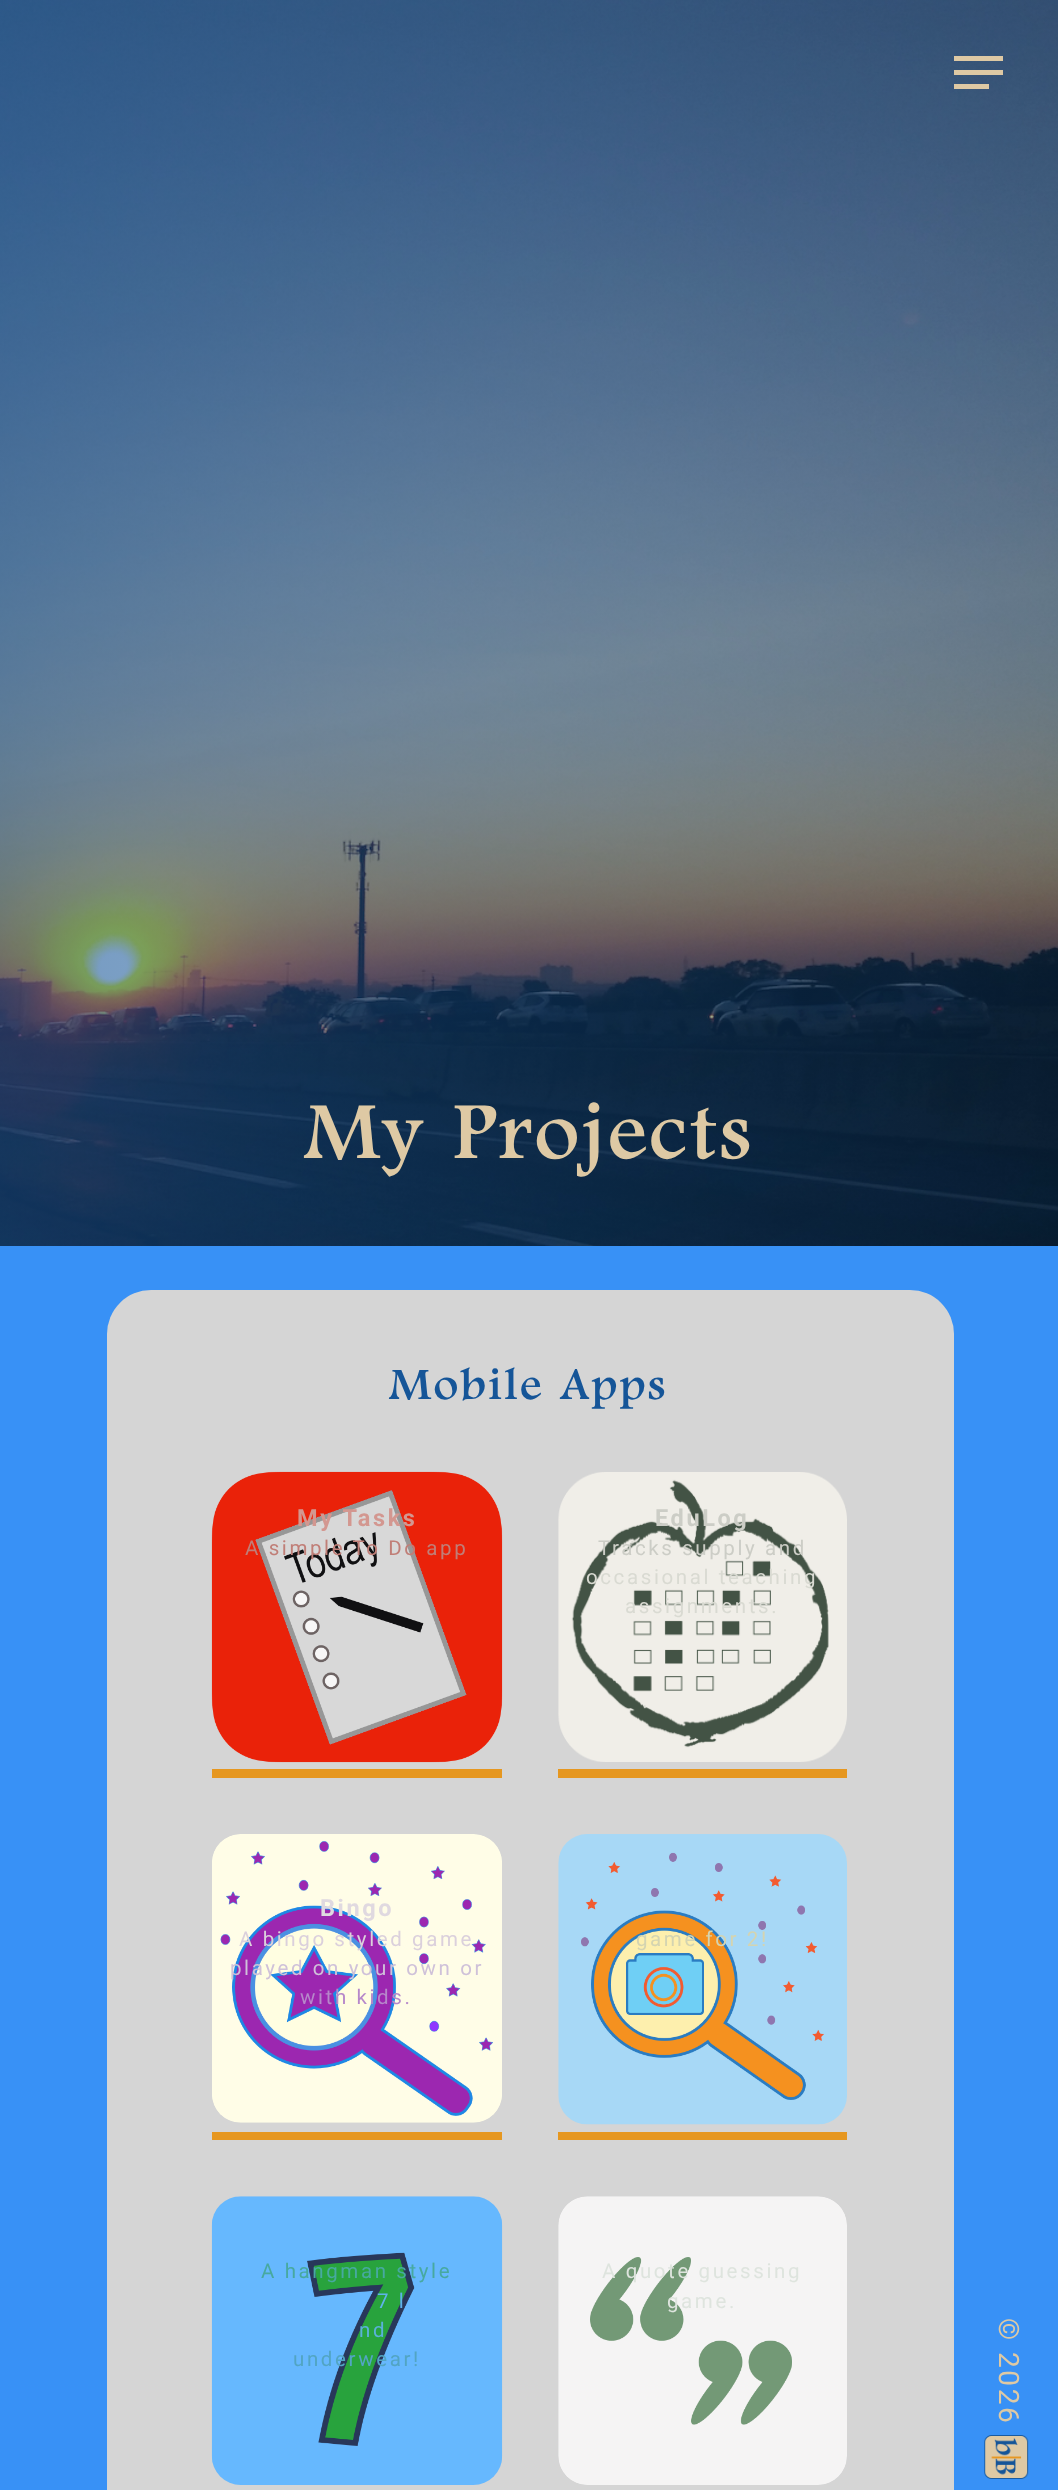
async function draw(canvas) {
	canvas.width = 1058;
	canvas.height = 2490;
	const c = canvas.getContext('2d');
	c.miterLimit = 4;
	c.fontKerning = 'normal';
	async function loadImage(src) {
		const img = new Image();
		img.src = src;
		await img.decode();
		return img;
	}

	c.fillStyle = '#3891f6';
	c.fillRect(0, 0, 1058, 2490);
	c.drawImage(await loadImage('img1.png'), 0, 0, 1058, 1246);
	for (const [x, y, w, h, color] of [
		[954, 70, 49, 5, '#dec9a4'],
		[954, 56, 49, 5, '#dec9a4'],
		[954, 84, 35, 5, '#dec9a4'],
	]) {
		c.fillStyle = color;
		c.fillRect(x, y, w, h);
	}
	c.letterSpacing = '2.6px';
	c.font = '300 84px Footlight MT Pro';
	c.fillText('My Projects', 304, 1158);
	c.fillStyle = '#d5d5d5';
	c.beginPath();
	c.roundRect(107, 1290, 847, 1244, 44);
	c.fill();
	c.font = '300 46.5px Footlight MT Pro';
	c.fillStyle = '#155598';
	c.fillText('Mobile Apps', 389, 1399);
	c.fillStyle = '#e69720';
	c.fillRect(212, 1769, 290, 9);
	c.drawImage(await loadImage('img2.png'), 211, 1471, 292, 292);
	c.font = 'bold 23.5px Roboto';
	c.fillStyle = '#d39790';
	c.fillText('My Tasks', 297, 1526);
	c.font = '20.5px Roboto';
	c.fillStyle = '#c07e77';
	c.fillText('A simple To Do app', 245, 1555);
	c.fillStyle = '#e69720';
	c.fillRect(558, 1769, 289, 9);
	c.drawImage(await loadImage('img3.png'), 558, 1472, 289, 290);
	c.font = 'bold 23.5px Roboto';
	c.fillStyle = '#cccdc6';
	c.fillText('EduLog', 655, 1526);
	c.font = '20.5px Roboto';
	c.fillText('Tracks supply and', 598, 1555);
	c.fillStyle = '#d9dad2';
	c.fillText('occasional teaching', 586, 1584);
	c.fillText('assignments.', 625, 1613);
	c.fillStyle = '#e69720';
	c.fillRect(212, 2132, 290, 8);
	c.drawImage(await loadImage('img4.png'), 212, 1834, 290, 289);
	c.font = 'bold 23.5px Roboto';
	c.fillStyle = '#e0d9e0';
	c.fillText('Bingo', 320, 1916);
	c.font = '20.5px Roboto';
	c.fillStyle = '#dbd0dc';
	c.fillText('A bingo styled game', 239, 1946);
	c.fillStyle = '#cfc1d9';
	c.fillText('played on your own or', 230, 1975);
	c.fillStyle = '#b688ca';
	c.fillText('with kids.', 300, 2004);
	c.fillStyle = '#e69720';
	c.fillRect(558, 2132, 289, 8);
	c.drawImage(await loadImage('img5.png'), 558, 1834, 289, 291);
	c.fillStyle = '#d4d4b1';
	c.fillText('game for 2!', 636, 1946);
	c.drawImage(await loadImage('img6.png'), 211, 2196, 292, 289);
	c.fillStyle = '#47a9a0';
	c.fillText('A hangman style', 261, 2278);
	c.fillStyle = '#5fb3ea';
	c.fillText('7 l', 377, 2308);
	c.fillStyle = '#5ab1d9';
	c.fillText('nd', 359, 2337);
	c.fillStyle = '#52a5c3';
	c.fillText('underwear!', 293, 2366);
	c.drawImage(await loadImage('img7.png'), 558, 2196, 289, 289);
	c.fillStyle = '#dee4de';
	c.fillText('A quote guessing', 602, 2278);
	c.fillText('game.', 667, 2308);
	c.font = '28px Roboto';
	c.fillStyle = '#dec9a4';
	c.save();
	c.translate(999, 2318);
	c.rotate(90 * Math.PI / 180);
	c.fillText('©', 0, 0);
	c.restore();
	c.save();
	c.translate(999, 2352);
	c.rotate(90 * Math.PI / 180);
	c.fillText('2026', 0, 0);
	c.restore();
	c.drawImage(await loadImage('img8.png'), 984, 2435, 45, 44);
}

draw(document.querySelector('canvas'));
